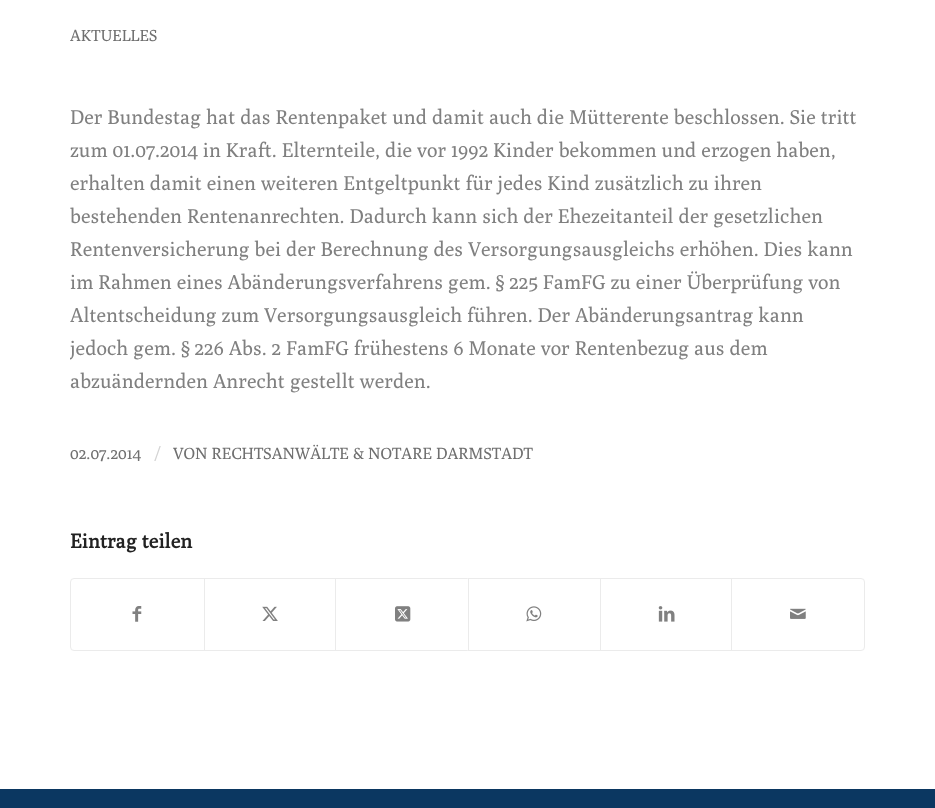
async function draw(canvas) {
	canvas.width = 935;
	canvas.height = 808;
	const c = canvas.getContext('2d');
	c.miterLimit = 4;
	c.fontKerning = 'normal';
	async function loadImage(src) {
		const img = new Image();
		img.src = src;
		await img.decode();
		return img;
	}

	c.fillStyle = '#fff';
	c.fillRect(0, 0, 935, 808);
	c.font = '16px Poly';
	c.fillStyle = '#707070';
	c.fillText('AKTUELLES', 70, 41);
	c.font = '20px Poly';
	c.fillStyle = '#808080';
	for (const [text, x, y] of [
		['Der Bundestag hat das Rentenpaket und damit auch die Mütterente beschlossen. Sie tritt', 70, 124],
		['zum 01.07.2014 in Kraft. Elternteile, die vor 1992 Kinder bekommen und erzogen haben,', 70, 157],
		['erhalten damit einen weiteren Entgeltpunkt für jedes Kind zusätzlich zu ihren', 70, 190],
		['bestehenden Rentenanrechten. Dadurch kann sich der Ehezeitanteil der gesetzlichen', 70, 223],
		['Rentenversicherung bei der Berechnung des Versorgungsausgleichs erhöhen. Dies kann', 70, 256],
		['im Rahmen eines Abänderungsverfahrens gem. § 225 FamFG zu einer Überprüfung von', 70, 289],
		['Altentscheidung zum Versorgungsausgleich führen. Der Abänderungsantrag kann', 70, 322],
	]) {
		c.fillText(text, x, y);
	}
	c.save();
	c.beginPath();
	c.rect(70, 0, 795, 701);
	c.clip();
	c.fillText('jedoch gem. § 226 Abs. 2 FamFG frühestens 6 Monate vor Rentenbezug aus dem', 70, 355);
	c.restore();
	c.fillText('abzuändernden Anrecht gestellt werden.', 70, 388);
	c.font = '16.2px Poly';
	c.fillStyle = '#707070';
	c.fillText('02.07.2014', 70, 459);
	c.font = '18px Poly';
	c.fillStyle = '#d4d4d4';
	c.fillText('/', 154, 460);
	c.font = '16.2px Poly';
	c.fillStyle = '#707070';
	c.fillText('VON RECHTSANWÄLTE & NOTARE DARMSTADT', 173, 459);
	c.font = 'bold 20px Poly';
	c.fillStyle = '#222';
	c.fillText('Eintrag teilen', 70, 548);
	c.beginPath();
	c.roundRect(70.5, 578.5, 794, 72, 3.5);
	c.strokeStyle = '#ebebeb';
	c.stroke();
	c.drawImage(await loadImage('img1.png'), 132, 606, 10, 16);
	c.fillStyle = '#ebebeb';
	c.fillRect(204, 579, 1, 71);
	c.drawImage(await loadImage('img2.png'), 262, 606, 16, 15);
	c.fillRect(335, 579, 1, 71);
	c.drawImage(await loadImage('img3.png'), 395, 606, 16, 16);
	c.fillRect(468, 579, 1, 71);
	c.drawImage(await loadImage('img4.png'), 526, 606, 16, 16);
	c.fillRect(600, 579, 1, 71);
	c.drawImage(await loadImage('img5.png'), 658, 606, 17, 16);
	c.fillRect(731, 579, 1, 71);
	c.drawImage(await loadImage('img6.png'), 790, 608, 16, 11);
	c.fillStyle = '#0b3761';
	c.fillRect(0, 789, 935, 19);
}

draw(document.querySelector('canvas'));
